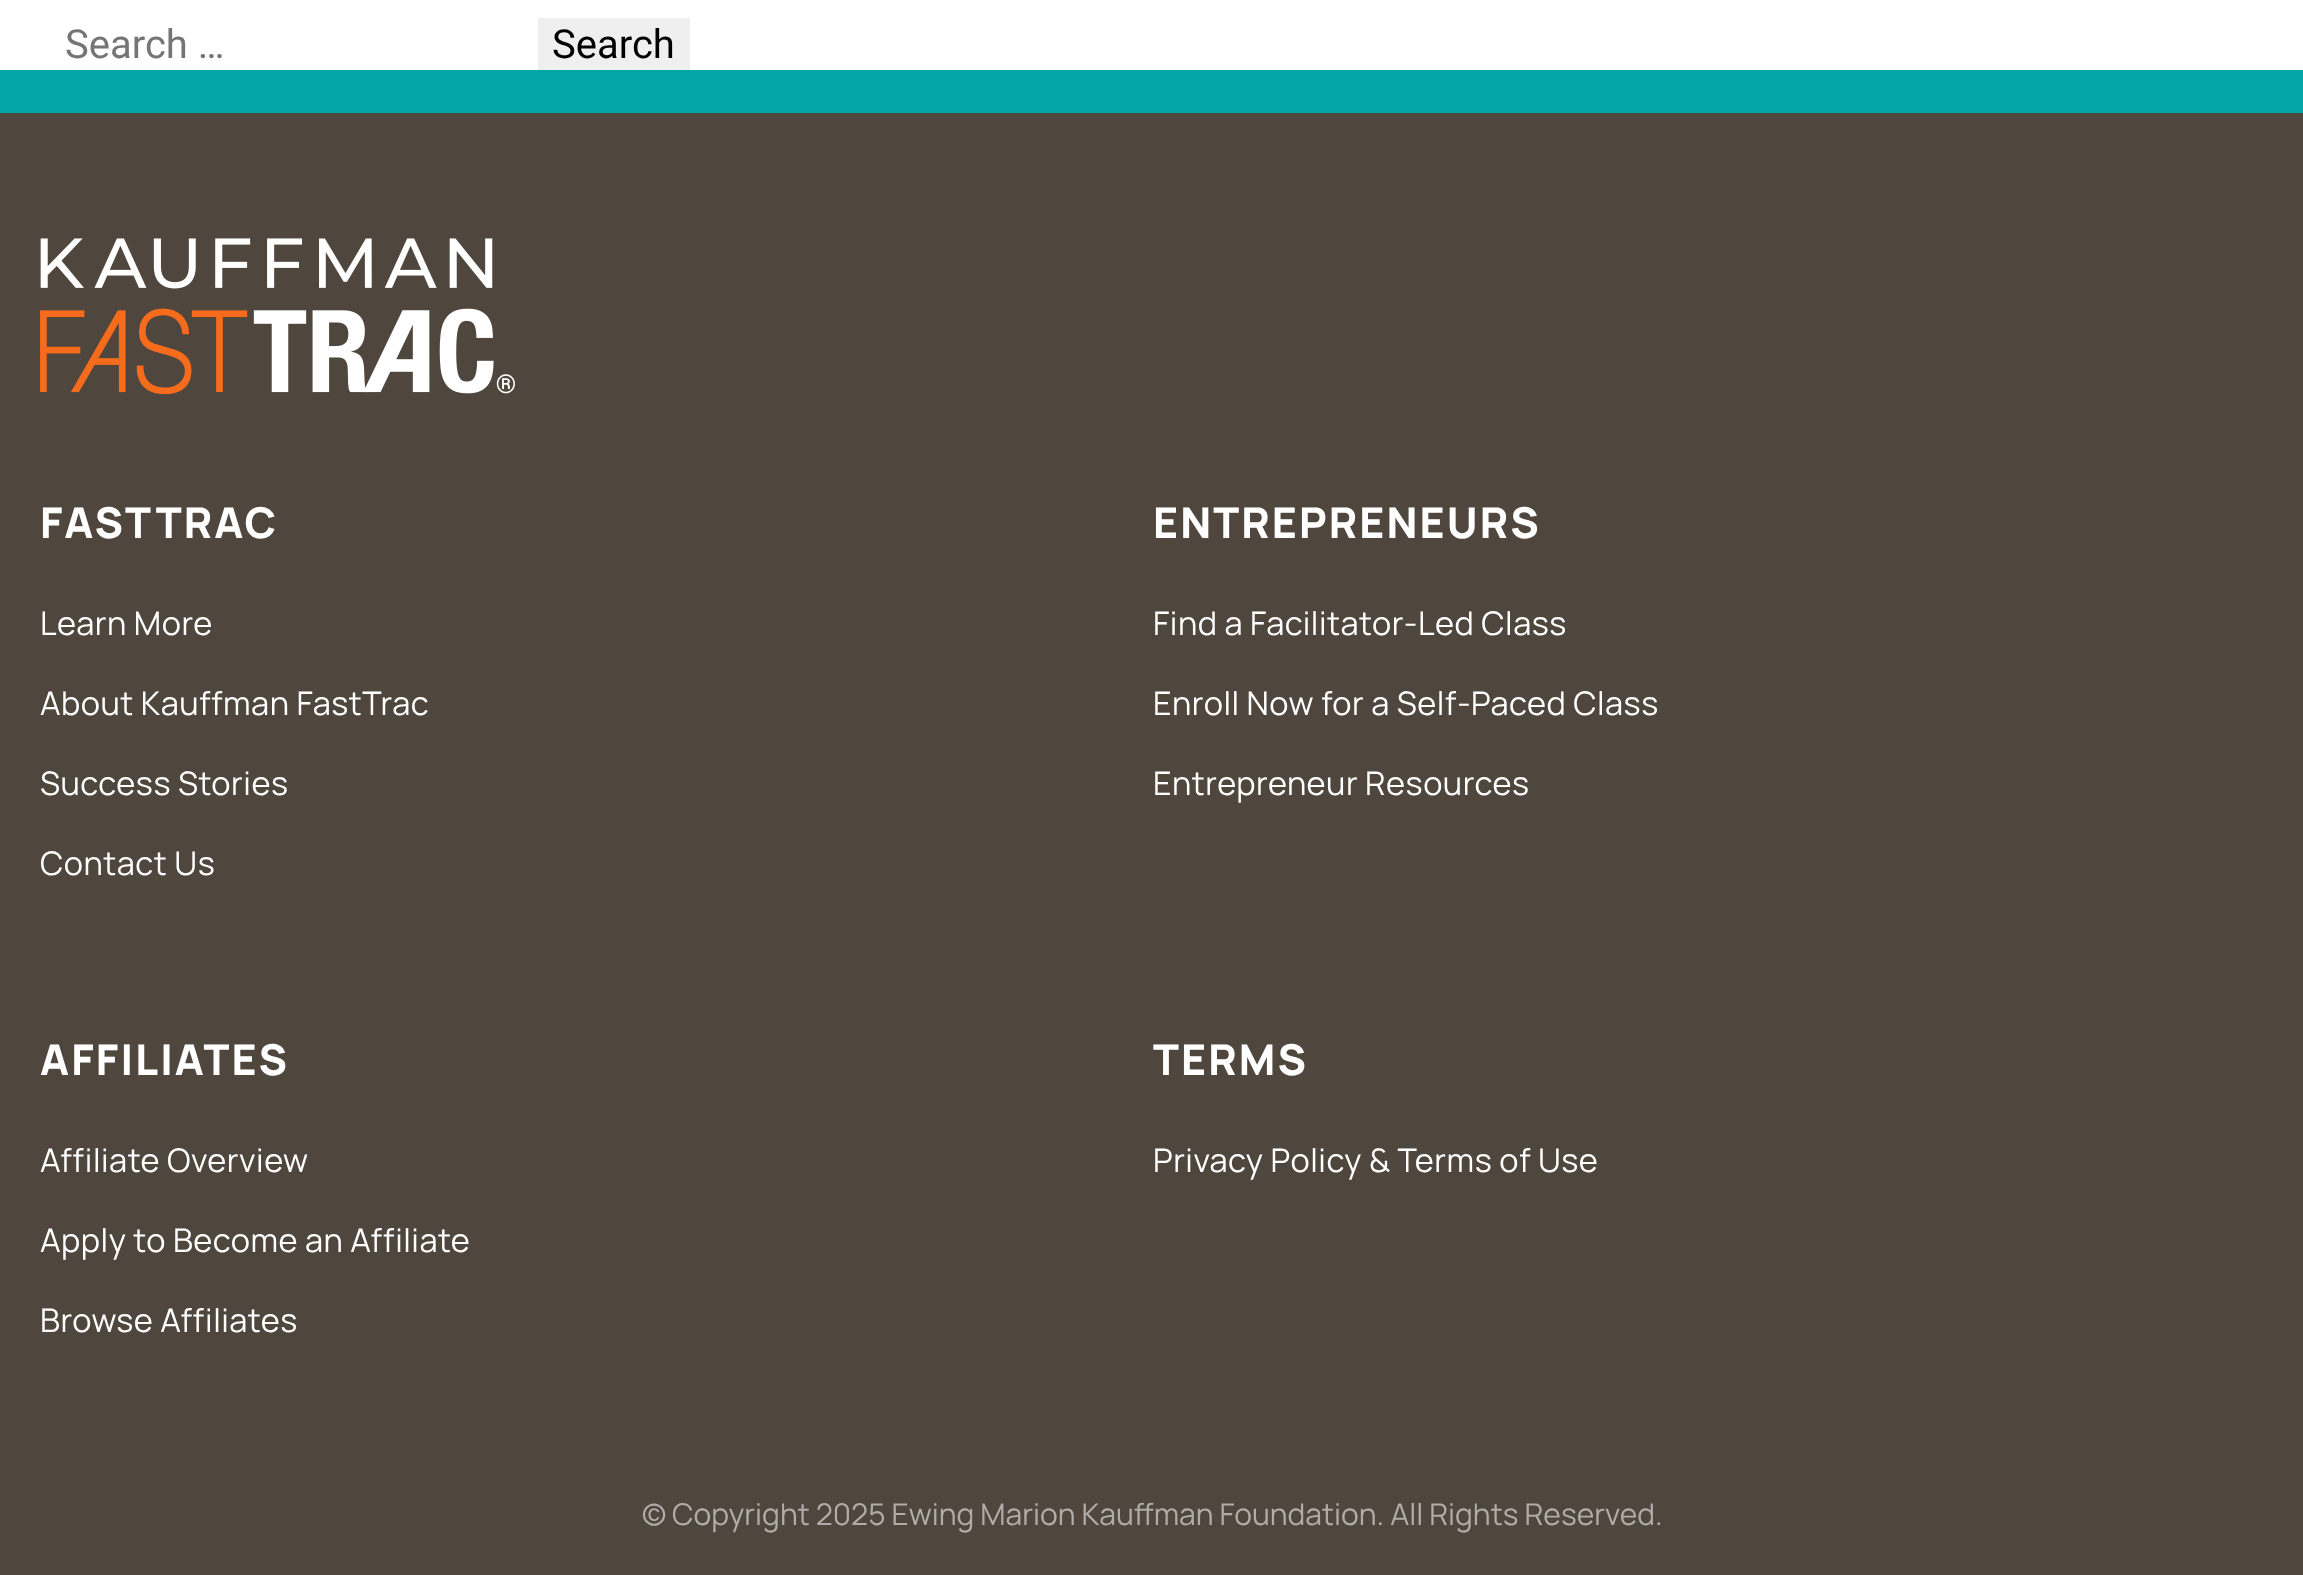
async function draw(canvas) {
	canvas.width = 2303;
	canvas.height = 1575;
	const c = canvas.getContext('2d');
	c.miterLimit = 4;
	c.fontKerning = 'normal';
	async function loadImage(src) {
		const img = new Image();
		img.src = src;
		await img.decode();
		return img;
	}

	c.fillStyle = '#fff';
	c.fillRect(0, 0, 2303, 1575);
	c.font = '40px Roboto';
	c.fillStyle = '#757575';
	c.fillText('Search …', 65, 58);
	c.fillStyle = '#efefef';
	c.fillRect(538, 18, 152, 52);
	c.fillStyle = '#000';
	c.fillText('Search', 552, 58);
	c.fillStyle = '#4f463d';
	c.fillRect(0, 113, 2303, 1462);
	c.fillStyle = '#03a6a7';
	c.fillRect(0, 70, 2303, 43);
	c.drawImage(await loadImage('img1.png'), 40, 238, 475, 156);
	c.letterSpacing = '2.1px';
	c.font = '800 42.5px Manrope';
	c.fillStyle = '#fff';
	c.fillText('FASTTRAC', 40, 538);
	c.letterSpacing = '0.5px';
	c.font = '32.5px Manrope';
	for (const [text, x, y] of [
		['Learn More', 40, 635],
		['About Kauffman FastTrac', 40, 715],
		['Success Stories', 40, 795],
		['Contact Us', 40, 875],
	]) {
		c.fillText(text, x, y);
	}
	c.letterSpacing = '2.1px';
	c.font = '800 42.5px Manrope';
	c.fillText('ENTREPRENEURS', 1153, 538);
	c.letterSpacing = '0.5px';
	c.font = '32.5px Manrope';
	for (const [text, x, y] of [
		['Find a Facilitator-Led Class', 1153, 635],
		['Enroll Now for a Self-Paced Class', 1153, 715],
		['Entrepreneur Resources', 1153, 795],
	]) {
		c.fillText(text, x, y);
	}
	c.letterSpacing = '2.1px';
	c.font = '800 42.5px Manrope';
	c.fillText('AFFILIATES', 40, 1075);
	c.letterSpacing = '0.5px';
	c.font = '32.5px Manrope';
	for (const [text, x, y] of [
		['Affiliate Overview', 40, 1172],
		['Apply to Become an Affiliate', 40, 1252],
		['Browse Affiliates', 40, 1332],
	]) {
		c.fillText(text, x, y);
	}
	c.letterSpacing = '2.1px';
	c.font = '800 42.5px Manrope';
	c.fillText('TERMS', 1153, 1075);
	c.letterSpacing = '0.5px';
	c.font = '32.5px Manrope';
	c.fillText('Privacy Policy & Terms of Use', 1153, 1172);
	c.letterSpacing = '0px';
	c.font = '30px Manrope';
	c.fillStyle = '#b0aca8';
	c.fillText('© Copyright 2025 Ewing Marion Kauffman Foundation. All Rights Reserved.', 642, 1525);
}

draw(document.querySelector('canvas'));
